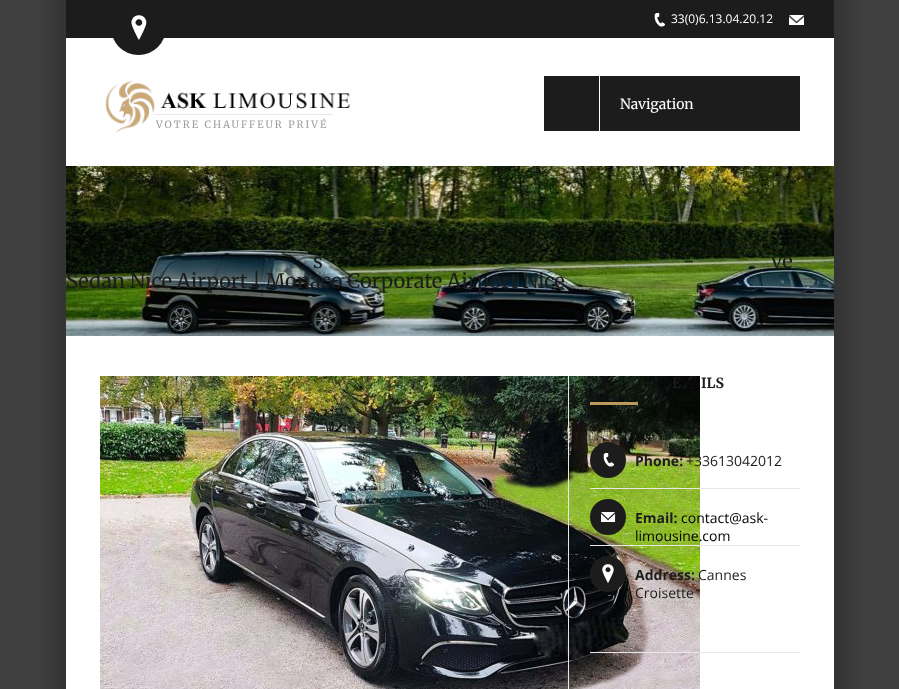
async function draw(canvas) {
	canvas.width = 899;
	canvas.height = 689;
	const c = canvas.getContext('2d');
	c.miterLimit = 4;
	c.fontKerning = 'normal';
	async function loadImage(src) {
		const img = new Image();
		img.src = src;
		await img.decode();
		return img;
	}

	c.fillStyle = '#404040';
	c.fillRect(0, 0, 899, 689);
	c.fillStyle = '#00000033';
	c.filter = 'blur(10px)';
	c.beginPath();
	c.rect(51, -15, 798, 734);
	c.fill();
	c.filter = 'none';
	c.fillStyle = '#fff';
	c.fillRect(66, 38, 768, 651);
	c.fillStyle = '#1c1c1c';
	c.fillRect(66, 0, 768, 38);
	c.beginPath();
	c.arc(138.5, 27.5, 27.5, 0, 2 * Math.PI);
	c.fill();
	c.drawImage(await loadImage('img1.png'), 131, 15, 16, 25);
	c.drawImage(await loadImage('img2.png'), 654, 13, 11, 14);
	c.font = '12px Open Sans';
	c.fillStyle = '#fff';
	c.fillText('33(0)6.13.04.20.12', 671, 23);
	c.drawImage(await loadImage('img3.png'), 789, 15, 15, 10);
	c.fillStyle = '#1c1c1c';
	c.fillRect(544, 76, 55, 55);
	c.fillRect(600, 76, 200, 55);
	c.font = '14px Merriweather';
	c.fillStyle = '#fff';
	c.fillText('Navigation', 620, 109);
	c.drawImage(await loadImage('img4.png'), 105, 80, 246, 53);
	c.fillStyle = '#e8e8e8';
	c.fillRect(153, 114, 180, 1);
	c.letterSpacing = '2px';
	c.font = '10px Merriweather';
	c.fillStyle = '#a09d9d';
	c.fillText('VOTRE CHAUFFEUR PRIVÉ', 156, 128);
	c.drawImage(await loadImage('img5.png'), 66, 166, 768, 170);
	c.letterSpacing = '0px';
	c.font = '20px Merriweather';
	c.fillStyle = '#1c1c1c';
	for (const [text, x, y] of [
		['s', 313, 268],
		['-', 683, 268],
		['ve', 771, 268],
		['Sedan Nice Airport | Monaco Corporate Airport Nice', 66, 288],
	]) {
		c.fillText(text, x, y);
	}
	c.drawImage(await loadImage('img6.png'), 100, 376, 600, 313);
	c.fillStyle = '#e8e8e8';
	c.fillRect(568, 376, 1, 313);
	c.fillRect(590, 652, 210, 1);
	c.font = 'bold 14px Merriweather';
	c.fillStyle = '#1c1c1c';
	c.fillText('E', 672, 388);
	c.fillText('ILS', 701, 388);
	c.fillStyle = '#bf9958';
	c.fillRect(590, 402, 48, 3);
	c.fillStyle = '#e8e8e8';
	c.fillRect(590, 488, 210, 1);
	c.fillStyle = '#1c1c1c';
	c.beginPath();
	c.arc(608, 460, 18, 0, 2 * Math.PI);
	c.fill();
	c.drawImage(await loadImage('img2.png'), 603, 453, 11, 14);
	c.font = 'bold 14px Open Sans';
	c.fillText('Phone:', 635, 466);
	c.font = '14px Open Sans';
	c.fillText('+33613042012', 686, 466);
	c.fillStyle = '#e8e8e8';
	c.fillRect(590, 545, 210, 1);
	c.fillStyle = '#1c1c1c';
	c.beginPath();
	c.arc(608, 517, 18, 0, 2 * Math.PI);
	c.fill();
	c.drawImage(await loadImage('img7.png'), 601, 512, 15, 10);
	c.font = 'bold 14px Open Sans';
	c.fillText('Email:', 635, 523);
	c.font = '14px Open Sans';
	c.fillStyle = '#000';
	c.fillText('contact@ask-', 681, 523);
	c.fillText('limousine.com', 635, 541);
	c.fillStyle = '#1c1c1c';
	c.beginPath();
	c.arc(608, 574, 18, 0, 2 * Math.PI);
	c.fill();
	c.drawImage(await loadImage('img8.png'), 602, 564, 12, 19);
	c.font = 'bold 14px Open Sans';
	c.fillText('Address:', 635, 580);
	c.font = '14px Open Sans';
	c.fillText('Cannes', 698, 580);
	c.fillText('Croisette', 635, 598);
}

draw(document.querySelector('canvas'));
